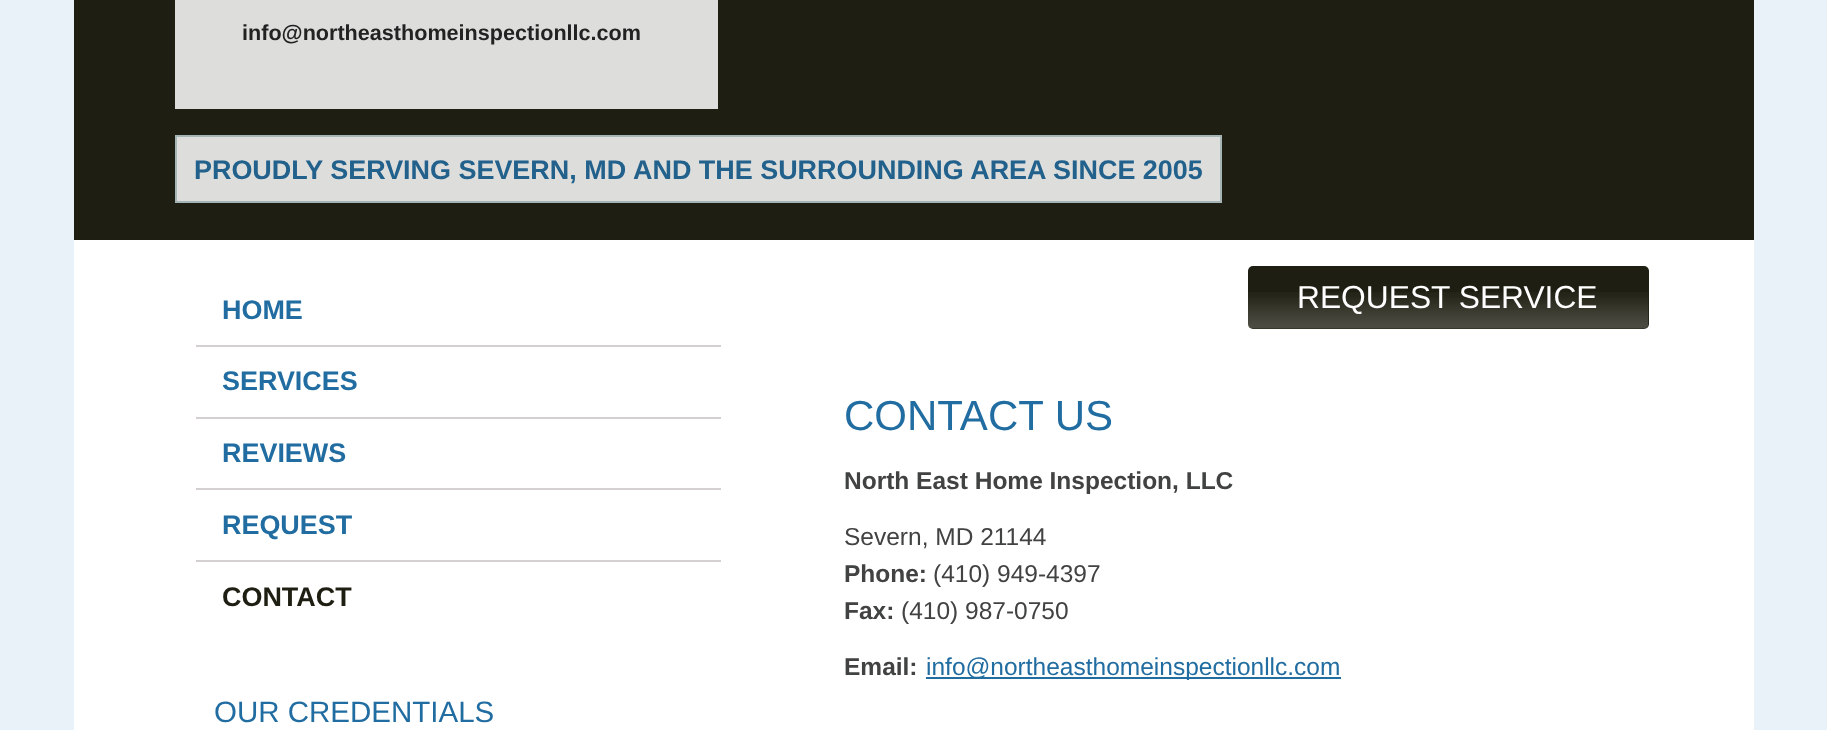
async function draw(canvas) {
	canvas.width = 1827;
	canvas.height = 730;
	const c = canvas.getContext('2d');
	c.miterLimit = 4;
	c.fontKerning = 'normal';
	async function loadImage(src) {
		const img = new Image();
		img.src = src;
		await img.decode();
		return img;
	}

	c.fillStyle = '#e9f2f9';
	c.fillRect(0, 0, 1827, 730);
	for (const [x, y, w, h, color] of [
		[74, 240, 1680, 490, '#fff'],
		[74, 0, 1680, 240, '#1f1e12'],
		[175, 0, 543, 109, '#dddddb'],
	]) {
		c.fillStyle = color;
		c.fillRect(x, y, w, h);
	}
	c.font = 'bold 21.6px Liberation Sans';
	c.fillStyle = '#222';
	c.fillText('info@northeasthomeinspectionllc.com', 242, 40);
	c.fillStyle = '#dddddb';
	c.beginPath();
	c.rect(176, 136, 1045, 66);
	c.fill();
	c.strokeStyle = '#a5b5b6';
	c.lineWidth = 2;
	c.stroke();
	c.font = 'bold 26.95px Liberation Sans';
	c.fillStyle = '#21618c';
	c.fillText('PROUDLY SERVING SEVERN, MD', 194, 179);
	c.fillText('AND THE SURROUNDING AREA SINCE 2005', 633, 179);
	c.fillStyle = '#1f1e12';
	c.beginPath();
	c.roundRect(1248, 266, 401, 63, 5);
	c.fill();
	c.drawImage(await loadImage('img1.png'), 1248, 292, 401, 37);
	c.font = '31.75px Liberation Sans';
	c.fillStyle = '#fff';
	c.fillText('REQUEST SERVICE', 1297, 308);
	c.font = 'bold 26.95px Liberation Sans';
	c.fillStyle = '#216da1';
	c.fillText('HOME', 222, 319);
	c.fillStyle = '#d4d0d1';
	c.fillRect(196, 345, 525, 2);
	c.fillStyle = '#216da1';
	c.fillText('SERVICES', 222, 390);
	c.fillStyle = '#d4d0d1';
	c.fillRect(196, 417, 525, 2);
	c.fillStyle = '#216da1';
	c.fillText('REVIEWS', 222, 462);
	c.fillStyle = '#d4d0d1';
	c.fillRect(196, 488, 525, 2);
	c.fillStyle = '#216da1';
	c.fillText('REQUEST', 222, 534);
	c.fillStyle = '#d4d0d1';
	c.fillRect(196, 560, 525, 2);
	c.fillStyle = '#1f1e12';
	c.fillText('CONTACT', 222, 606);
	c.font = '29.5px Liberation Sans';
	c.fillStyle = '#216da1';
	c.fillText('OUR CREDENTIALS', 214, 722);
	c.font = '42px Liberation Sans';
	c.fillText('CONTACT US', 844, 430);
	c.font = 'bold 24.5px Liberation Sans';
	c.fillStyle = '#414242';
	c.fillText('North East Home Inspection, LLC', 844, 489);
	c.font = '24.5px Liberation Sans';
	c.fillText('Severn, MD 21144', 844, 545);
	c.font = 'bold 24.5px Liberation Sans';
	c.fillText('Phone:', 844, 582);
	c.font = '24.5px Liberation Sans';
	c.fillText('(410) 949-4397', 933, 582);
	c.font = 'bold 24.5px Liberation Sans';
	c.fillText('Fax:', 844, 619);
	c.font = '24.5px Liberation Sans';
	c.fillText('(410) 987-0750', 901, 619);
	c.font = 'bold 24.5px Liberation Sans';
	c.fillText('Email:', 844, 675);
	c.fillStyle = '#216da1';
	c.fillRect(926, 677, 415, 2);
	c.font = '24.5px Liberation Sans';
	c.fillText('info@northeasthomeinspectionllc.com', 926, 675);
}

draw(document.querySelector('canvas'));
